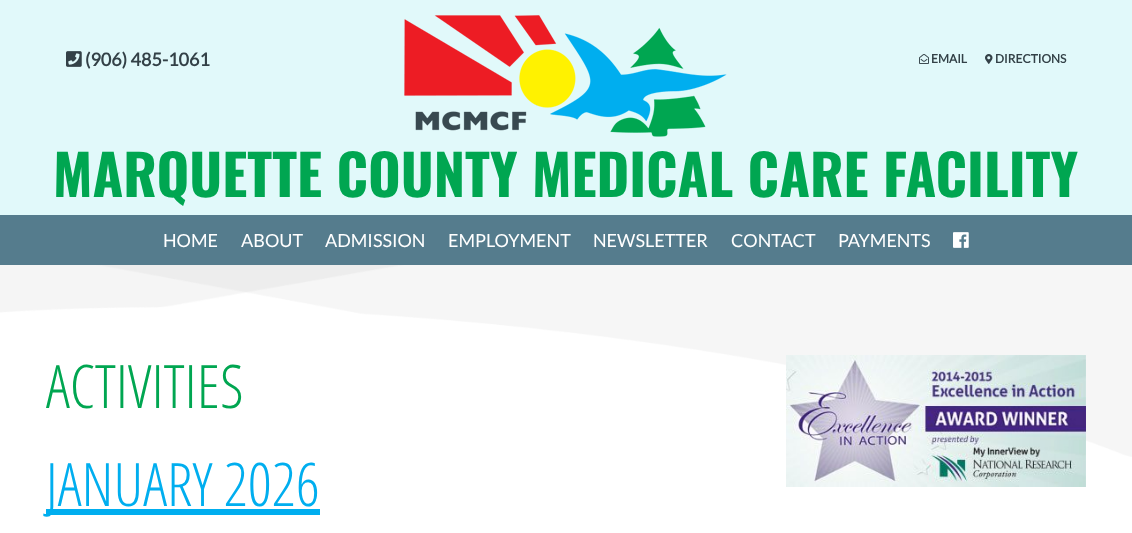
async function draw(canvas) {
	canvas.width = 1132;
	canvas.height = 533;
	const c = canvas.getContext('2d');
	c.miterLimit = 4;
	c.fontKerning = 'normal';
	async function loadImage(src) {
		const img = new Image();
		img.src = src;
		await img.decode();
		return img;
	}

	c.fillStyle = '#e1f9fa';
	c.fillRect(0, 0, 1132, 533);
	c.drawImage(await loadImage('img1.png'), 66, 51, 16, 16);
	c.font = 'bold 18px Lato';
	c.fillStyle = '#334147';
	c.fillText('(906) 485-1061', 85, 66);
	c.drawImage(await loadImage('img2.png'), 404, 15, 323, 122);
	c.drawImage(await loadImage('img3.png'), 919, 54, 10, 10);
	c.font = 'bold 12px Lato';
	c.fillText('EMAIL', 931, 63);
	c.drawImage(await loadImage('img4.png'), 985, 54, 8, 10);
	c.fillText('DIRECTIONS', 995, 63);
	c.font = 'bold 56px Oswald';
	c.fillStyle = '#00a651';
	c.fillText('MARQUETTE COUNTY MEDICAL CARE FACILITY', 53, 197);
	c.fillStyle = '#557c8d';
	c.fillRect(0, 215, 1132, 50);
	c.font = '18px Lato';
	c.fillStyle = '#fff';
	for (const [text, x, y] of [
		['HOME', 163, 247],
		['ABOUT', 241, 247],
		['ADMISSION', 325, 247],
		['EMPLOYMENT', 448, 247],
		['NEWSLETTER', 593, 247],
		['CONTACT', 731, 247],
		['PAYMENTS', 838, 247],
	]) {
		c.fillText(text, x, y);
	}
	c.drawImage(await loadImage('img5.png'), 953, 232, 16, 16);
	c.fillRect(0, 265, 1132, 268);
	c.drawImage(await loadImage('img6.png'), 0, 265, 1132, 192);
	c.font = '300 60px Open Sans Condensed';
	c.fillStyle = '#00a651';
	c.fillText('ACTIVITIES', 46, 408);
	c.fillStyle = '#00aeef';
	c.fillRect(46, 509, 274, 6);
	c.fillText('JANUARY 2026', 46, 506);
	c.drawImage(await loadImage('img7.png'), 786, 355, 300, 132);
}

draw(document.querySelector('canvas'));
